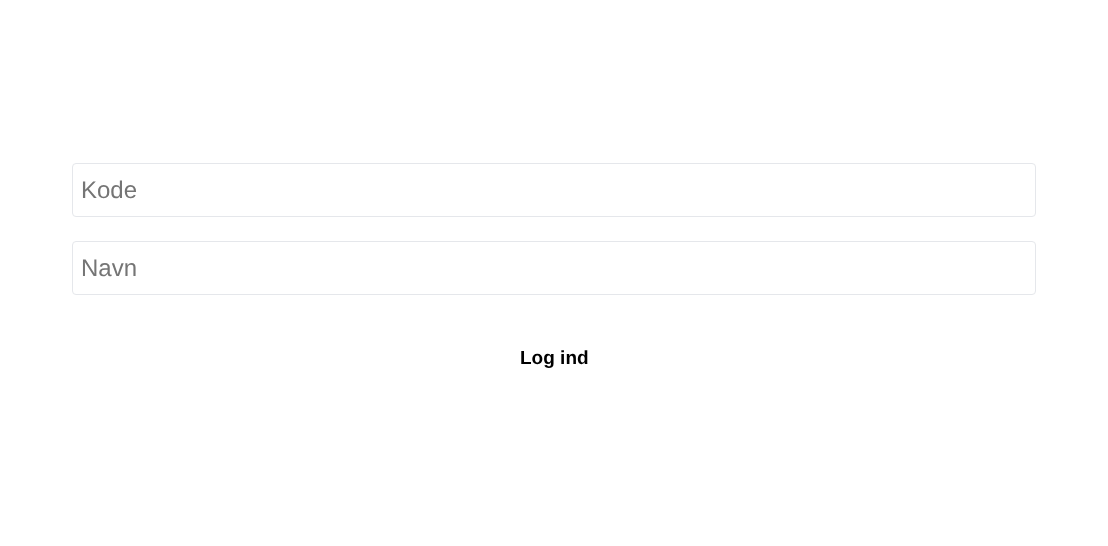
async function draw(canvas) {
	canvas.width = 1108;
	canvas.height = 546;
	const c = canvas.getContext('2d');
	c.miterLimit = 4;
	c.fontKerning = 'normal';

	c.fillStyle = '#fff';
	c.fillRect(0, 0, 1108, 546);
	c.beginPath();
	c.roundRect(72.5, 163.5, 963, 53, 3.5);
	c.strokeStyle = '#e5e7eb';
	c.stroke();
	c.font = '24px Liberation Sans';
	c.fillStyle = '#757575';
	c.fillText('Kode', 81, 198);
	c.beginPath();
	c.roundRect(72.5, 241.5, 963, 53, 3.5);
	c.stroke();
	c.fillText('Navn', 81, 276);
	c.font = 'bold 19px Liberation Sans';
	c.fillStyle = '#000';
	c.fillText('Log ind', 520, 364);
}

draw(document.querySelector('canvas'));
